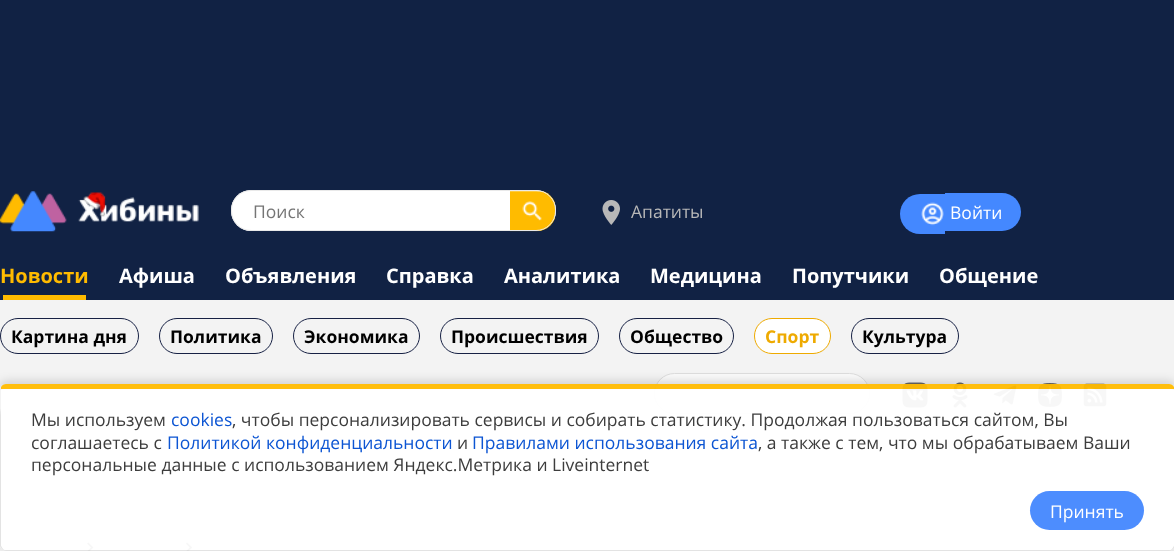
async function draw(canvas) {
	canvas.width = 1174;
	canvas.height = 551;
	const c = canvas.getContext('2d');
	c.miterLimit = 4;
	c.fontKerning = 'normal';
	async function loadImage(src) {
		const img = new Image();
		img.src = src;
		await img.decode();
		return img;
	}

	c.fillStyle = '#f3f3f3';
	c.fillRect(0, 0, 1174, 551);
	c.fillStyle = '#124';
	c.fillRect(0, 0, 1174, 300);
	c.drawImage(await loadImage('img1.png'), 0, 191, 199, 41);
	c.fillStyle = '#fff';
	c.beginPath();
	c.roundRect(231, 190, 325, 41, 20);
	c.fill();
	c.drawImage(await loadImage('img2.png'), 510, 191, 45, 41);
	c.beginPath();
	c.roundRect(231.5, 190.5, 324, 40, 19.5);
	c.strokeStyle = '#e9e9e9';
	c.stroke();
	c.font = '17.5px Open Sans';
	c.fillStyle = '#757575';
	c.fillText('Поиск', 253, 218);
	c.drawImage(await loadImage('img3.png'), 602, 200, 18, 25);
	c.fillStyle = '#b8b8b8';
	c.fillText('Апатиты', 631, 218);
	c.fillStyle = '#48f';
	c.beginPath();
	c.roundRect(900, 194, 45, 40, [20, 0, 0, 20]);
	c.fill();
	c.drawImage(await loadImage('img4.png'), 921, 202, 23, 24);
	c.beginPath();
	c.roundRect(945, 193, 76, 38, [0, 19, 19, 0]);
	c.fill();
	c.fillStyle = '#fff';
	c.fillText('Войти', 950, 219);
	c.font = 'bold 20px Open Sans';
	c.fillStyle = '#fb0';
	c.fillText('Новости', 0, 283);
	c.fillRect(3, 295, 83, 5);
	c.fillStyle = '#fff';
	for (const [text, x, y] of [
		['Афиша', 119, 283],
		['Объявления', 225, 283],
		['Справка', 386, 283],
		['Аналитика', 504, 283],
		['Медицина', 650, 283],
		['Попутчики', 792, 283],
		['Общение', 939, 283],
	]) {
		c.fillText(text, x, y);
	}
	c.beginPath();
	c.roundRect(0.5, 318.5, 138, 35, 17.5);
	c.strokeStyle = '#172144';
	c.stroke();
	c.font = 'bold 17.5px Open Sans';
	c.fillStyle = '#000';
	c.fillText('Картина дня', 11, 343);
	c.beginPath();
	c.roundRect(159.5, 318.5, 113, 35, 17.5);
	c.stroke();
	c.fillText('Политика', 170, 343);
	c.beginPath();
	c.roundRect(293.5, 318.5, 126, 35, 17.5);
	c.stroke();
	c.fillText('Экономика', 304, 343);
	c.beginPath();
	c.roundRect(440.5, 318.5, 158, 35, 17.5);
	c.stroke();
	c.fillText('Происшествия', 451, 343);
	c.beginPath();
	c.roundRect(619.5, 318.5, 114, 35, 17.5);
	c.stroke();
	c.fillText('Общество', 630, 343);
	c.fillStyle = '#fff';
	c.beginPath();
	c.roundRect(754.5, 318.5, 76, 35, 17.5);
	c.fill();
	c.strokeStyle = '#ea0';
	c.stroke();
	c.fillStyle = '#ea0';
	c.fillText('Спорт', 765, 343);
	c.beginPath();
	c.roundRect(851.5, 318.5, 107, 35, 17.5);
	c.strokeStyle = '#172144';
	c.stroke();
	c.fillStyle = '#000';
	c.fillText('Культура', 862, 343);
	c.fillStyle = '#fafafa';
	c.beginPath();
	c.roundRect(654.5, 373.5, 215, 40, 20);
	c.fill();
	c.strokeStyle = '#ddd';
	c.stroke();
	c.drawImage(await loadImage('img5.png'), 87, 542, 7, 9);
	c.drawImage(await loadImage('img6.png'), 186, 542, 6, 9);
	c.drawImage(await loadImage('img7.png'), 902, 382, 26, 26);
	c.drawImage(await loadImage('img8.png'), 952, 382, 16, 26);
	c.drawImage(await loadImage('img9.png'), 993, 385, 24, 20);
	c.drawImage(await loadImage('img10.png'), 1038, 383, 24, 24);
	c.drawImage(await loadImage('img11.png'), 1083, 383, 24, 24);
	c.save();
	c.beginPath();
	c.moveTo(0, 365);
	c.lineTo(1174, 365);
	c.lineTo(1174, 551);
	c.lineTo(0, 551);
	c.closePath();
	c.moveTo(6, 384);
	c.lineTo(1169, 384);
	c.bezierCurveTo(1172.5, 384, 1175, 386.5, 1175, 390);
	c.lineTo(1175, 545);
	c.bezierCurveTo(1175, 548.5, 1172.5, 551, 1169, 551);
	c.lineTo(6, 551);
	c.bezierCurveTo(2.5, 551, 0, 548.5, 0, 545);
	c.lineTo(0, 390);
	c.bezierCurveTo(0, 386.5, 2.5, 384, 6, 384);
	c.closePath();
	c.clip('evenodd');
	c.fillStyle = '#00000024';
	c.filter = 'blur(5px)';
	c.beginPath();
	c.roundRect(0, 381, 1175, 168, 6);
	c.fill();
	c.filter = 'none';
	c.restore();
	c.fillStyle = '#fffffff2';
	c.beginPath();
	c.moveTo(6, 389);
	c.lineTo(1169, 389);
	c.bezierCurveTo(1172, 389, 1174, 389, 1174, 390);
	c.lineTo(1174, 545);
	c.bezierCurveTo(1174, 548, 1172, 550, 1169, 550);
	c.lineTo(6, 550);
	c.bezierCurveTo(3, 550, 1, 548, 1, 545);
	c.lineTo(1, 390);
	c.bezierCurveTo(1, 389, 3, 389, 6, 389);
	c.closePath();
	c.fill();
	c.fillStyle = '#ffbb00f2';
	c.beginPath();
	c.moveTo(6, 384);
	c.bezierCurveTo(4, 384, 2, 385, 1, 387);
	c.lineTo(1, 389);
	c.lineTo(6, 389);
	c.lineTo(1169, 389);
	c.lineTo(1174, 389);
	c.lineTo(1174, 387);
	c.bezierCurveTo(1173, 385, 1171, 384, 1169, 384);
	c.closePath();
	c.fill();
	c.fillStyle = '#e3e3e3';
	c.beginPath();
	c.moveTo(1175, 545);
	c.lineTo(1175, 390);
	c.lineTo(1174, 387);
	c.lineTo(1174, 389);
	c.bezierCurveTo(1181, 394, 1174, 407, 1174, 416);
	c.lineTo(1174, 546);
	c.lineTo(1172, 549);
	c.lineTo(1173, 549);
	c.bezierCurveTo(1174, 548, 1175, 547, 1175, 545);
	c.closePath();
	c.fill();
	c.fillStyle = '#e2e2e2f2';
	c.beginPath();
	c.moveTo(1173, 549);
	c.bezierCurveTo(1172, 550, 1170, 551, 1169, 551);
	c.lineTo(6, 551);
	c.bezierCurveTo(5, 551, 3, 550, 2, 549);
	c.lineTo(3, 549);
	c.bezierCurveTo(3, 550, 5, 550, 6, 550);
	c.lineTo(1169, 550);
	c.bezierCurveTo(1170, 550, 1172, 550, 1172, 549);
	c.closePath();
	c.fill();
	c.beginPath();
	c.moveTo(0, 390);
	c.lineTo(0, 546);
	c.lineTo(2, 549);
	c.lineTo(3, 549);
	c.lineTo(1, 546);
	c.lineTo(1, 416);
	c.bezierCurveTo(1, 407, -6, 394, 1, 389);
	c.lineTo(1, 387);
	c.closePath();
	c.fill();
	c.font = '17.5px Open Sans';
	c.fillStyle = '#3d3d3d';
	c.fillText('Мы используем', 31, 426);
	c.fillStyle = '#0c55d3';
	c.fillText('cookies', 171, 426);
	c.fillStyle = '#3d3d3d';
	c.fillText(', чтобы персонализировать сервисы и собирать статистику. Продолжая пользоваться сайтом, Вы', 232, 426);
	c.fillText('соглашаетесь с', 31, 449);
	c.fillStyle = '#0c55d3';
	c.fillText('Политикой конфиденциальности', 167, 449);
	c.fillStyle = '#3d3d3d';
	c.fillText('и', 457, 449);
	c.fillStyle = '#0c55d3';
	c.fillText('Правилами использования сайта', 472, 449);
	c.fillStyle = '#3d3d3d';
	c.fillText(', а также с тем, что мы обрабатываем Ваши', 758, 449);
	c.fillText('персональные данные с использованием Яндекс.Метрика и Liveinternet', 31, 471);
	c.fillStyle = '#4d8dfe';
	c.beginPath();
	c.roundRect(1030, 491, 114, 39, 19.5);
	c.fill();
	c.fillStyle = '#fff';
	c.fillText('Принять', 1050, 518);
}

draw(document.querySelector('canvas'));
